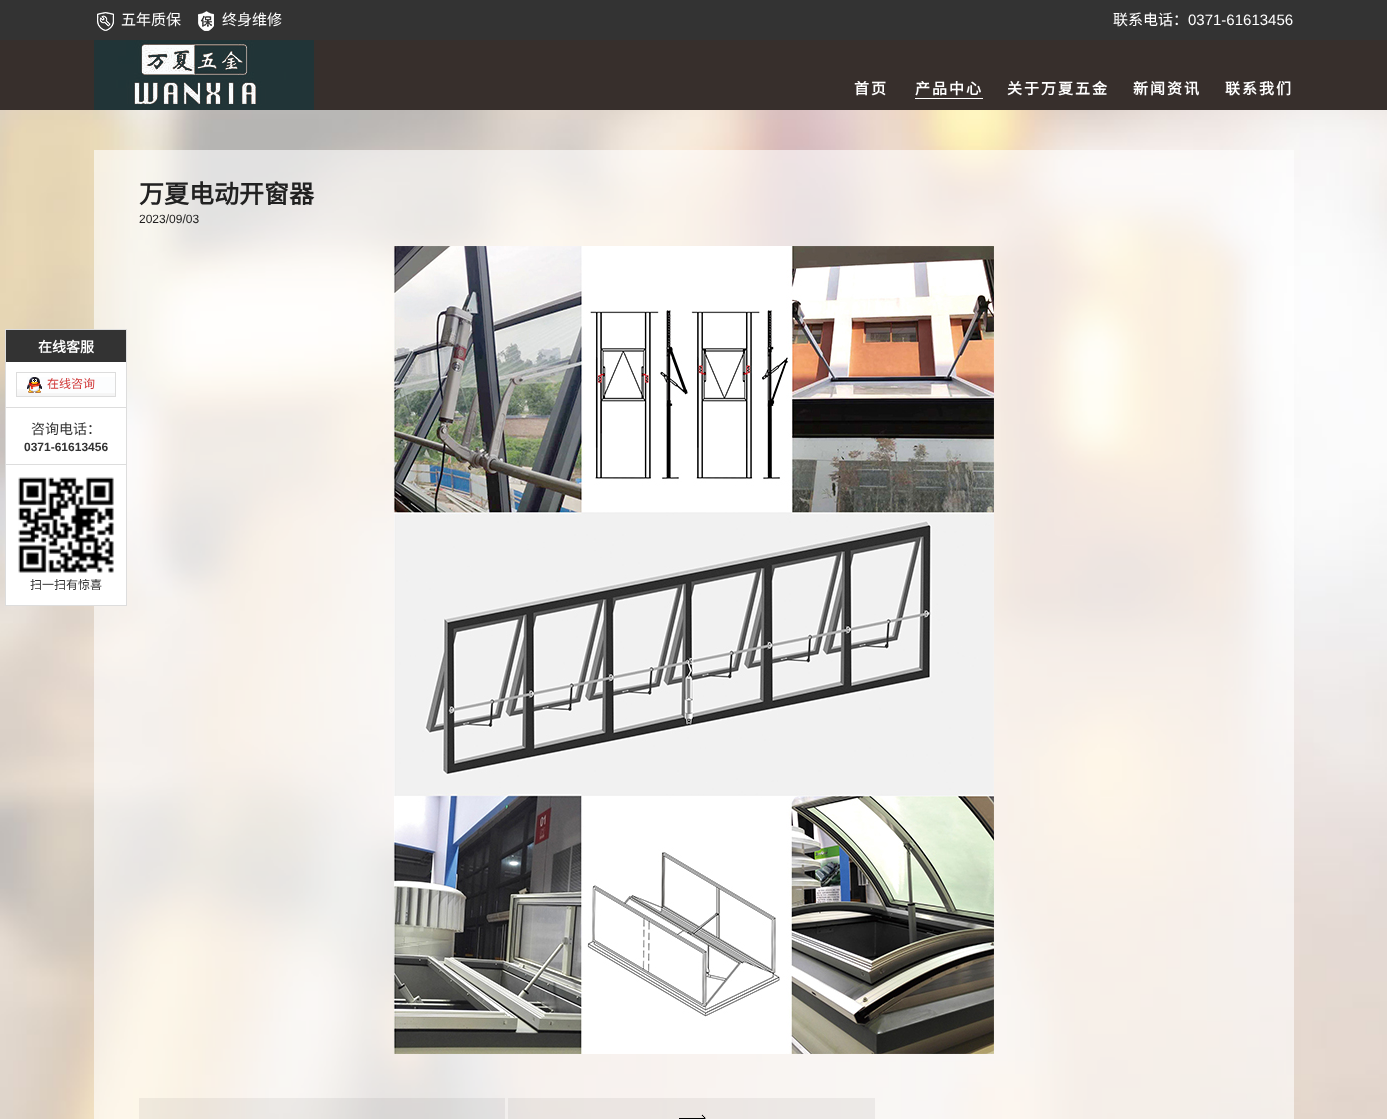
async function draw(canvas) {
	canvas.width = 1387;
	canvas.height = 1119;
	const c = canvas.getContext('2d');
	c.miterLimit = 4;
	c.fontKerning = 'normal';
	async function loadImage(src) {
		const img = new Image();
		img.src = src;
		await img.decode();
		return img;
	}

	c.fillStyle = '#fff';
	c.fillRect(0, 0, 1387, 1119);
	c.drawImage(await loadImage('img1.png'), 0, 110, 1387, 1009);
	c.fillStyle = '#333';
	c.fillRect(0, 0, 1387, 40);
	c.drawImage(await loadImage('img2.png'), 97, 12, 17, 19);
	c.font = '15px Noto Sans CJK SC';
	c.fillStyle = '#fff';
	c.fillText('五年质保', 121, 25);
	c.drawImage(await loadImage('img3.png'), 198, 11, 16, 20);
	c.fillText('终身维修', 222, 25);
	c.fillText('联系电话：', 1113, 25);
	c.font = '15px Liberation Sans';
	c.fillText('0371-61613456', 1188, 25);
	c.fillStyle = '#372f2c';
	c.fillRect(0, 40, 1387, 70);
	c.drawImage(await loadImage('img4.png'), 94, 40, 220, 70);
	c.letterSpacing = '2px';
	c.font = 'bold 15px Noto Sans CJK SC';
	c.fillStyle = '#fff';
	c.fillText('首页', 854, 94);
	c.fillText('产品中心', 915, 94);
	c.fillRect(915, 98, 68, 1);
	for (const [text, x, y] of [
		['关于万夏五金', 1007, 94],
		['新闻资讯', 1133, 94],
		['联系我们', 1225, 94],
	]) {
		c.fillText(text, x, y);
	}
	c.fillStyle = '#ffffff99';
	c.fillRect(94, 150, 1200, 969);
	c.letterSpacing = '0px';
	c.font = 'bold 25px Noto Sans CJK SC';
	c.fillStyle = '#212121';
	c.fillText('万夏电动开窗器', 139, 203);
	c.font = '12px Liberation Sans';
	c.fillText('2023/09/03', 139, 223);
	c.drawImage(await loadImage('img5.png'), 394, 246, 600, 808);
	c.fillStyle = '#0000000d';
	c.fillRect(139, 1098, 366, 21);
	c.fillRect(508, 1098, 367, 21);
	c.drawImage(await loadImage('img6.png'), 679, 1114, 27, 5);
	for (const [x, y, w, h, color] of [
		[6, 362, 120, 243, '#fff'],
		[6, 330, 120, 32, '#333'],
		[5, 329, 122, 1, '#ddd'],
		[126, 329, 1, 277, '#ddd'],
		[5, 329, 1, 33, '#ddd'],
	]) {
		c.fillStyle = color;
		c.fillRect(x, y, w, h);
	}
	c.font = 'bold 14px Noto Sans CJK SC';
	c.fillStyle = '#fff';
	c.fillText('在线客服', 38, 352);
	c.fillStyle = '#ddd';
	c.fillRect(5, 407, 122, 1);
	c.fillRect(5, 362, 1, 46);
	c.drawImage(await loadImage('img7.png'), 17, 389, 98, 7);
	c.drawImage(await loadImage('img8.png'), 27, 377, 88, 16);
	c.strokeStyle = '#ddd';
	c.strokeRect(16.5, 372.5, 99, 24);
	c.font = '12px Noto Sans CJK SC';
	c.fillStyle = '#d13939';
	c.fillText('在线咨询', 47, 388);
	c.fillStyle = '#ddd';
	c.fillRect(5, 464, 122, 1);
	c.fillRect(5, 408, 1, 57);
	c.font = '14px Noto Sans CJK SC';
	c.fillStyle = '#333';
	c.fillText('咨询电话：', 31, 434);
	c.font = 'bold 12px Liberation Sans';
	c.fillText('0371-61613456', 24, 451);
	c.fillStyle = '#ddd';
	c.fillRect(5, 605, 122, 1);
	c.fillRect(5, 465, 1, 141);
	c.drawImage(await loadImage('img9.png'), 18, 477, 96, 96);
	c.font = '12px Noto Sans CJK SC';
	c.fillStyle = '#333';
	c.fillText('扫一扫有惊喜', 30, 589);
}

draw(document.querySelector('canvas'));
